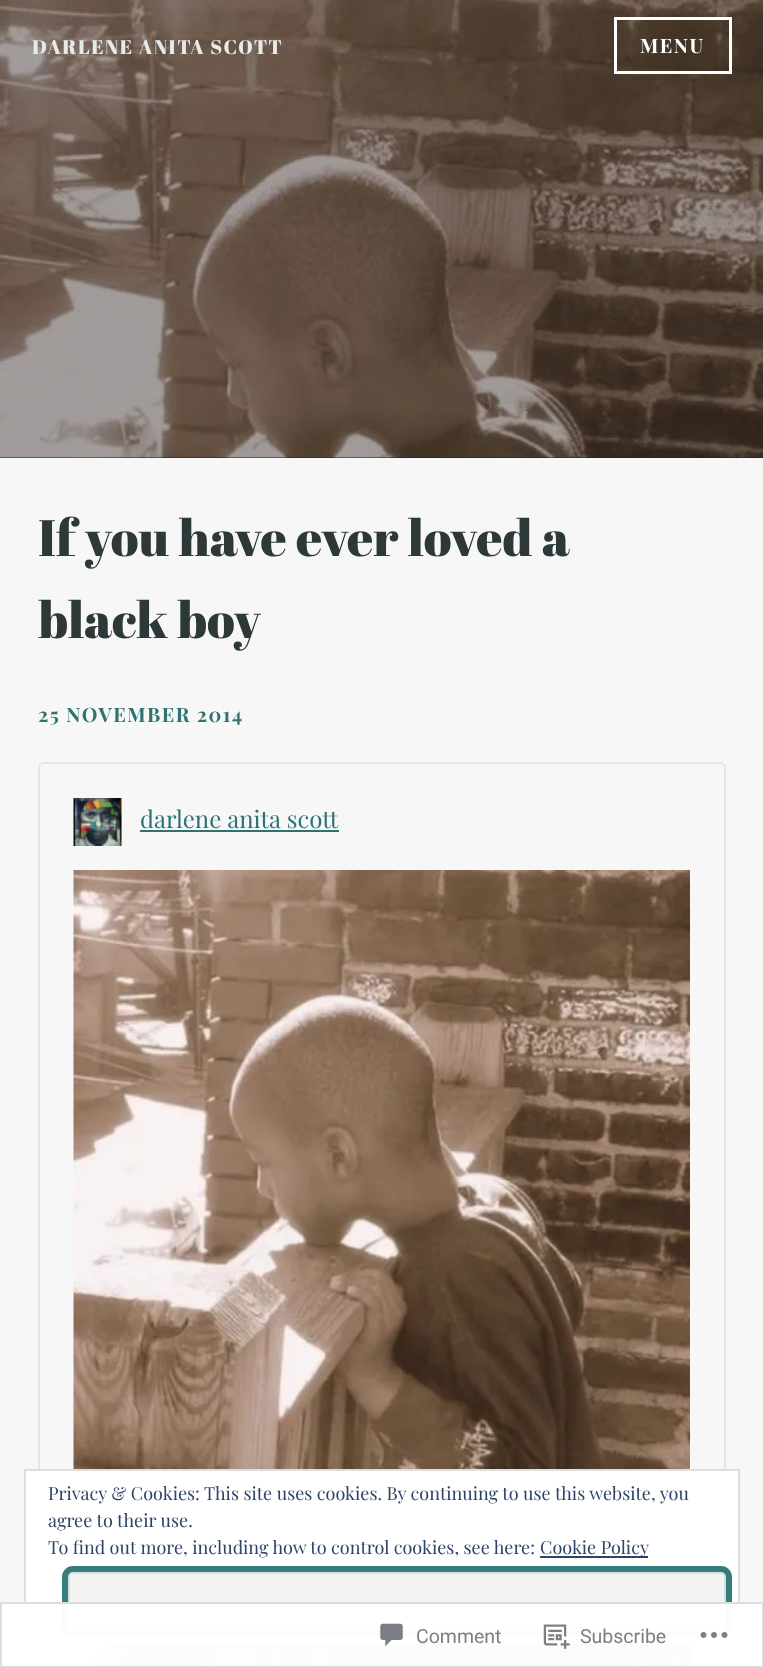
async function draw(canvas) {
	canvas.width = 763;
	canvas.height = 1667;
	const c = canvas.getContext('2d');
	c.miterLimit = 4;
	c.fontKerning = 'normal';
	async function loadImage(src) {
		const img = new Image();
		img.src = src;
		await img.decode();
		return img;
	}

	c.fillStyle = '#f7f7f7';
	c.fillRect(0, 0, 763, 1667);
	c.fillStyle = '#1e1c1b';
	c.fillRect(0, 0, 763, 458);
	c.drawImage(await loadImage('img1.png'), 0, 0, 763, 458);
	c.letterSpacing = '1.5px';
	c.font = '19.75px Abril Fatface';
	c.fillStyle = '#e8e9ea';
	c.fillText('DARLENE ANITA SCOTT', 32, 54);
	c.strokeStyle = '#fff';
	c.lineWidth = 3;
	c.strokeRect(615.5, 18.5, 115, 54);
	c.font = 'bold 19.75px Playfair Display';
	c.fillStyle = '#fff';
	c.fillText('MENU', 640, 53);
	c.letterSpacing = '0px';
	c.font = '51px Abril Fatface';
	c.fillStyle = '#2d3838';
	c.fillText('If you have ever loved a', 38, 556);
	c.fillText('black boy', 38, 638);
	c.letterSpacing = '1.5px';
	c.font = 'bold 19.75px Playfair Display';
	c.fillStyle = '#307272';
	c.fillText('25 NOVEMBER 2014', 38, 722);
	c.beginPath();
	c.roundRect(39, 763, 686, 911, 5);
	c.strokeStyle = '#e3e5e7';
	c.lineWidth = 2;
	c.stroke();
	c.drawImage(await loadImage('img2.png'), 73, 798, 49, 48);
	c.letterSpacing = '0px';
	c.font = '24px Playfair Display';
	c.fillText('darlene anita scott', 140, 828);
	c.fillRect(140, 830, 199, 2);
	c.drawImage(await loadImage('img3.png'), 73, 870, 617, 797);
	c.fillStyle = '#fff';
	c.beginPath();
	c.rect(25, 1470, 714, 173);
	c.fill();
	c.strokeStyle = '#dedede';
	c.stroke();
	c.font = '18px Playfair Display';
	c.fillStyle = '#2e4467';
	for (const [text, x, y] of [
		['Privacy & Cookies: This site uses cookies. By continuing to use this website, you', 48, 1500],
		['agree to their use.', 48, 1527],
		['To find out more, including how to control cookies, see here:', 48, 1554],
	]) {
		c.fillText(text, x, y);
	}
	c.fillRect(540, 1556, 108, 2);
	c.fillText('Cookie Policy', 540, 1554);
	c.fillStyle = '#f3f3f3';
	c.beginPath();
	c.roundRect(69, 1573, 656, 57, 4);
	c.fill();
	c.stroke();
	c.beginPath();
	c.roundRect(65, 1569, 664, 65, 8);
	c.strokeStyle = '#357c7c';
	c.lineWidth = 6;
	c.stroke();
	c.fillStyle = '#fffffffa';
	c.fillRect(0, 1602, 763, 65);
	c.strokeStyle = '#dcdcdefa';
	c.lineWidth = 2;
	c.strokeRect(1, 1603, 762, 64);
	c.drawImage(await loadImage('img4.png'), 380, 1623, 23, 24);
	c.font = '19.5px Roboto';
	c.fillStyle = '#7b7f84';
	c.fillText('Comment', 416, 1643);
	c.drawImage(await loadImage('img5.png'), 543, 1624, 27, 25);
	c.fillText('Subscribe', 580, 1643);
	c.drawImage(await loadImage('img6.png'), 700, 1632, 28, 6);
}

draw(document.querySelector('canvas'));
